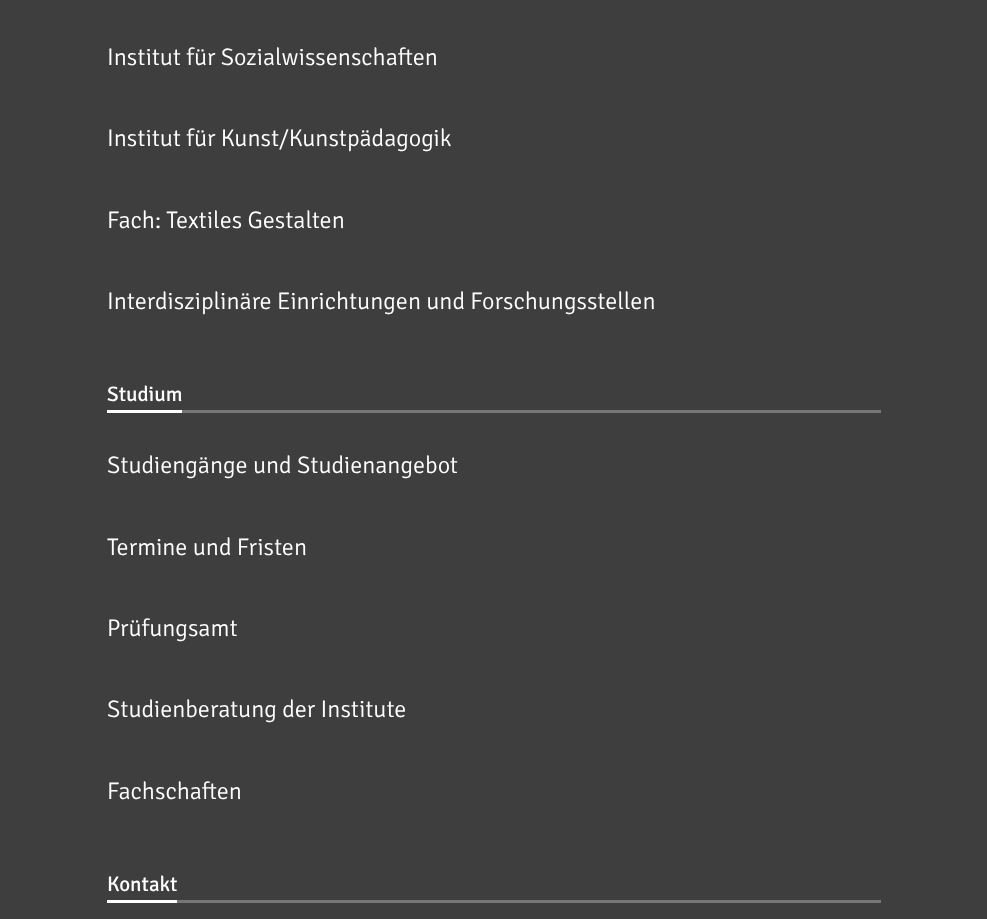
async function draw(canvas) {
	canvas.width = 987;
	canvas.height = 919;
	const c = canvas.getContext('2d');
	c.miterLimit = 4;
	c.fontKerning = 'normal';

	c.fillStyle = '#3e3e3f';
	c.fillRect(0, 0, 987, 919);
	c.font = '300 24px Signika';
	c.fillStyle = '#fff';
	for (const [text, x, y] of [
		['Institut für Sozialwissenschaften', 107, 65],
		['Institut für Kunst/Kunstpädagogik', 107, 146],
		['Fach: Textiles Gestalten', 107, 228],
		['Interdisziplinäre Einrichtungen und Forschungsstellen', 107, 309],
	]) {
		c.fillText(text, x, y);
	}
	c.font = '21px Signika';
	c.fillText('Studium', 107, 401);
	c.fillRect(107, 410, 75, 3);
	c.fillStyle = '#767676';
	c.fillRect(182, 410, 699, 3);
	c.font = '300 24px Signika';
	c.fillStyle = '#fff';
	for (const [text, x, y] of [
		['Studiengänge und Studienangebot', 107, 473],
		['Termine und Fristen', 107, 555],
		['Prüfungsamt', 107, 636],
		['Studienberatung der Institute', 107, 717],
		['Fachschaften', 107, 799],
	]) {
		c.fillText(text, x, y);
	}
	c.font = '21px Signika';
	c.fillText('Kontakt', 107, 891);
	c.fillRect(107, 900, 70, 3);
	c.fillStyle = '#767676';
	c.fillRect(177, 900, 704, 3);
}

draw(document.querySelector('canvas'));
